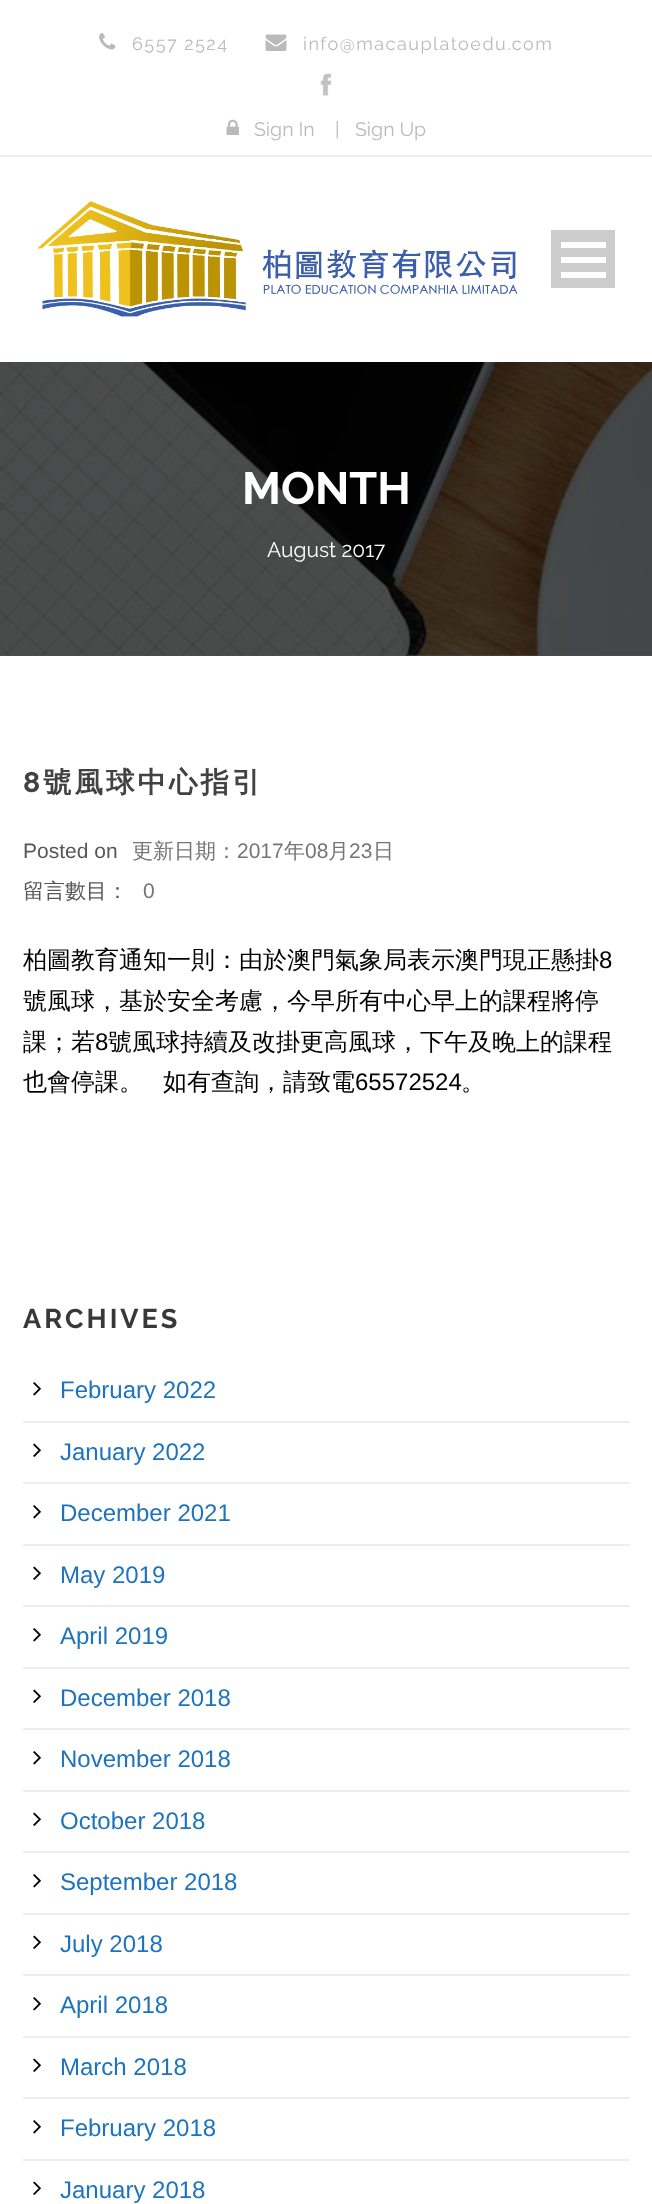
async function draw(canvas) {
	canvas.width = 652;
	canvas.height = 2204;
	const c = canvas.getContext('2d');
	c.miterLimit = 4;
	c.fontKerning = 'normal';
	async function loadImage(src) {
		const img = new Image();
		img.src = src;
		await img.decode();
		return img;
	}

	c.fillStyle = '#fff';
	c.fillRect(0, 0, 652, 2204);
	c.fillStyle = '#4d4d4d';
	c.fillRect(0, 655, 652, 1);
	c.fillStyle = '#eee';
	c.fillRect(0, 155, 652, 2);
	c.drawImage(await loadImage('img1.png'), 99, 33, 17, 17);
	c.letterSpacing = '1.5px';
	c.font = '18px Raleway';
	c.fillStyle = '#bababa';
	c.fillText('6557 2524', 132, 50);
	c.drawImage(await loadImage('img2.png'), 265, 34, 22, 17);
	c.fillText('info@macauplatoedu.com', 303, 50);
	c.drawImage(await loadImage('img3.png'), 320, 73, 11, 23);
	c.drawImage(await loadImage('img4.png'), 226, 119, 13, 16);
	c.letterSpacing = '0px';
	c.font = '19.5px Raleway';
	for (const [text, x, y] of [
		['Sign In', 254, 136],
		['|', 335, 136],
		['Sign Up', 355, 136],
	]) {
		c.fillText(text, x, y);
	}
	c.drawImage(await loadImage('img5.png'), 37, 201, 481, 116);
	for (const [x, y, w, h, color] of [
		[551, 230, 64, 58, '#ccc'],
		[561, 272, 45, 6, '#fff'],
		[561, 257, 45, 6, '#fff'],
		[561, 242, 45, 6, '#fff'],
	]) {
		c.fillStyle = color;
		c.fillRect(x, y, w, h);
	}
	c.drawImage(await loadImage('img6.png'), 0, 362, 652, 294);
	c.font = 'bold 45px Raleway';
	c.fillText('MONTH', 242, 504);
	c.font = '21px Raleway';
	c.fillText('August 2017', 267, 557);
	c.letterSpacing = '3px';
	c.font = 'bold 28.5px Raleway';
	c.fillStyle = '#424242';
	c.fillText('8', 23, 792);
	c.font = 'bold 28.5px WenQuanYi Zen Hei';
	c.fillText('號風球中心指引', 43, 792);
	c.letterSpacing = '0px';
	c.font = '21px Liberation Sans';
	c.fillStyle = '#575757';
	c.fillText('Posted on', 23, 858);
	c.font = '500 21px WenQuanYi Zen Hei';
	c.fillStyle = '#757575';
	c.fillText('更新日期：', 132, 858);
	c.font = '21px Liberation Sans';
	c.fillText('2017', 237, 858);
	c.font = '500 21px WenQuanYi Zen Hei';
	c.fillText('年', 284, 858);
	c.font = '21px Liberation Sans';
	c.fillText('08', 305, 858);
	c.font = '500 21px WenQuanYi Zen Hei';
	c.fillText('月', 328, 858);
	c.font = '21px Liberation Sans';
	c.fillText('23', 349, 858);
	c.font = '500 21px WenQuanYi Zen Hei';
	c.fillText('日', 373, 858);
	c.fillStyle = '#575757';
	c.fillText('留言數目：', 23, 898);
	c.font = '21px Liberation Sans';
	c.fillStyle = '#757575';
	c.fillText('0', 143, 898);
	c.font = '500 24px WenQuanYi Zen Hei';
	c.fillStyle = '#000';
	c.fillText('柏圖教育通知一則：由於澳門氣象局表示澳門現正懸掛', 23, 968);
	c.font = '24px Liberation Sans';
	c.fillText('8', 599, 968);
	c.font = '500 24px WenQuanYi Zen Hei';
	c.fillText('號風球，基於安全考慮，今早所有中心早上的課程將停', 23, 1009);
	c.fillText('課；若', 23, 1050);
	c.font = '24px Liberation Sans';
	c.fillText('8', 95, 1050);
	c.font = '500 24px WenQuanYi Zen Hei';
	for (const [text, x, y] of [
		['號風球持續及改掛更高風球，下午及晚上的課程', 108, 1050],
		['也會停課。', 23, 1090],
		['如有查詢，請致電', 163, 1090],
	]) {
		c.fillText(text, x, y);
	}
	c.font = '24px Liberation Sans';
	c.fillText('65572524', 355, 1090);
	c.font = '500 24px WenQuanYi Zen Hei';
	c.fillText('。', 461, 1090);
	c.letterSpacing = '3px';
	c.font = 'bold 27px Raleway';
	c.fillStyle = '#383838';
	c.fillText('ARCHIVES', 23, 1328);
	c.fillStyle = '#eee';
	c.fillRect(23, 1421, 607, 2);
	c.drawImage(await loadImage('img7.png'), 33, 1382, 8, 14);
	c.letterSpacing = '0px';
	c.font = '24px Liberation Sans';
	c.fillStyle = '#1e73be';
	c.fillText('February 2022', 60, 1398);
	c.fillStyle = '#eee';
	c.fillRect(23, 1482, 607, 2);
	c.drawImage(await loadImage('img8.png'), 33, 1443, 8, 14);
	c.fillStyle = '#1e73be';
	c.fillText('January 2022', 60, 1460);
	c.fillStyle = '#eee';
	c.fillRect(23, 1544, 607, 2);
	c.drawImage(await loadImage('img7.png'), 33, 1505, 8, 14);
	c.fillStyle = '#1e73be';
	c.fillText('December 2021', 60, 1521);
	c.fillStyle = '#eee';
	c.fillRect(23, 1605, 607, 2);
	c.drawImage(await loadImage('img8.png'), 33, 1566, 8, 14);
	c.fillStyle = '#1e73be';
	c.fillText('May 2019', 60, 1583);
	c.fillStyle = '#eee';
	c.fillRect(23, 1667, 607, 2);
	c.drawImage(await loadImage('img7.png'), 33, 1628, 8, 14);
	c.fillStyle = '#1e73be';
	c.fillText('April 2019', 60, 1644);
	c.fillStyle = '#eee';
	c.fillRect(23, 1728, 607, 2);
	c.drawImage(await loadImage('img8.png'), 33, 1689, 8, 14);
	c.fillStyle = '#1e73be';
	c.fillText('December 2018', 60, 1706);
	c.fillStyle = '#eee';
	c.fillRect(23, 1790, 607, 2);
	c.drawImage(await loadImage('img7.png'), 33, 1751, 8, 14);
	c.fillStyle = '#1e73be';
	c.fillText('November 2018', 60, 1767);
	c.fillStyle = '#eee';
	c.fillRect(23, 1851, 607, 2);
	c.drawImage(await loadImage('img8.png'), 33, 1812, 8, 14);
	c.fillStyle = '#1e73be';
	c.fillText('October 2018', 60, 1829);
	c.fillStyle = '#eee';
	c.fillRect(23, 1913, 607, 2);
	c.drawImage(await loadImage('img7.png'), 33, 1874, 8, 14);
	c.fillStyle = '#1e73be';
	c.fillText('September 2018', 60, 1890);
	c.fillStyle = '#eee';
	c.fillRect(23, 1974, 607, 2);
	c.drawImage(await loadImage('img8.png'), 33, 1935, 8, 14);
	c.fillStyle = '#1e73be';
	c.fillText('July 2018', 60, 1952);
	c.fillStyle = '#eee';
	c.fillRect(23, 2036, 607, 2);
	c.drawImage(await loadImage('img7.png'), 33, 1997, 8, 14);
	c.fillStyle = '#1e73be';
	c.fillText('April 2018', 60, 2013);
	c.fillStyle = '#eee';
	c.fillRect(23, 2097, 607, 2);
	c.drawImage(await loadImage('img8.png'), 33, 2058, 8, 14);
	c.fillStyle = '#1e73be';
	c.fillText('March 2018', 60, 2075);
	c.fillStyle = '#eee';
	c.fillRect(23, 2159, 607, 2);
	c.drawImage(await loadImage('img7.png'), 33, 2120, 8, 14);
	c.fillStyle = '#1e73be';
	c.fillText('February 2018', 60, 2136);
	c.drawImage(await loadImage('img8.png'), 33, 2181, 8, 14);
	c.fillText('January 2018', 60, 2198);
}

draw(document.querySelector('canvas'));
